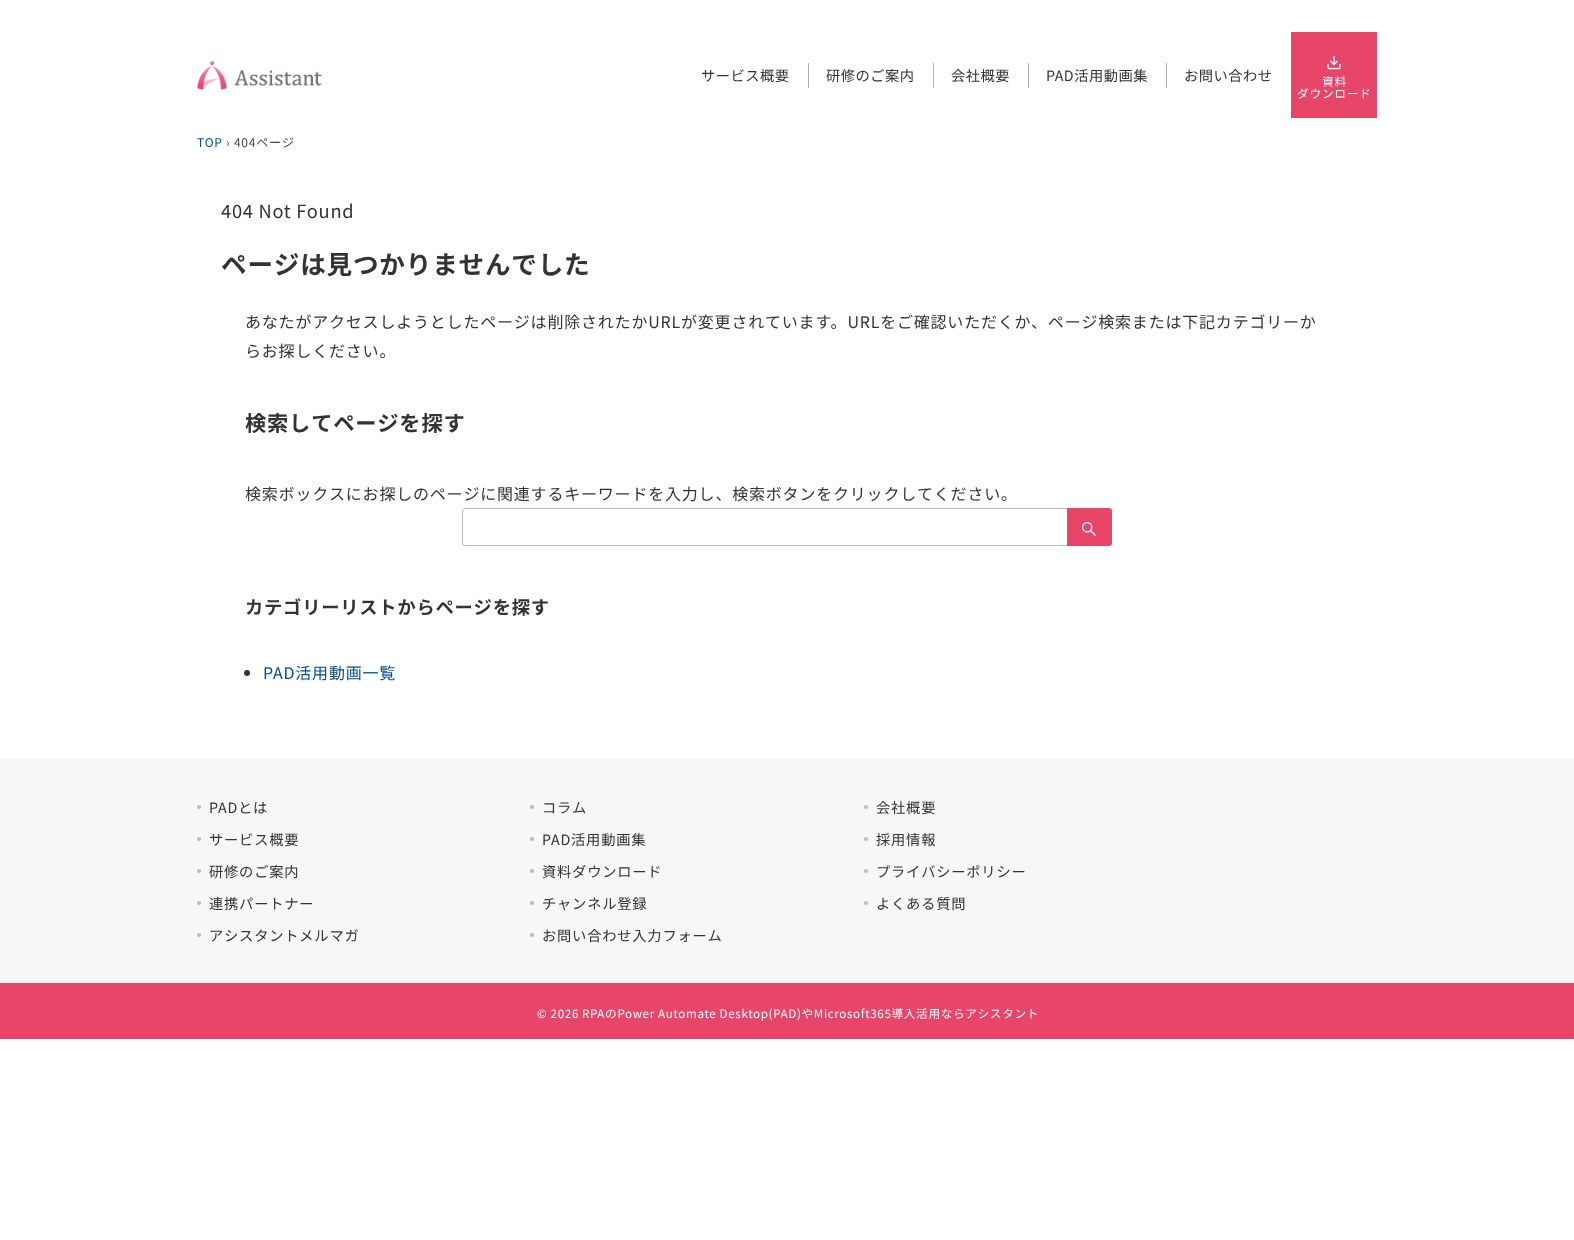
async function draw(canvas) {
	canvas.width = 1574;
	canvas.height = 1240;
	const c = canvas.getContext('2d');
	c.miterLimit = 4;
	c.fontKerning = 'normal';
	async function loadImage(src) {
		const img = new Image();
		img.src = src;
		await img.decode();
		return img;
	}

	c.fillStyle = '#fff';
	c.fillRect(0, 0, 1574, 1240);
	c.drawImage(await loadImage('img1.png'), 197, 60, 125, 30);
	c.letterSpacing = '0.5px';
	c.font = '14.25px Noto Sans JP';
	c.fillStyle = '#333';
	c.fillText('サービス概要', 701, 81);
	c.fillStyle = '#adadad';
	c.fillRect(808, 63, 1, 25);
	c.fillStyle = '#333';
	c.fillText('研修のご案内', 826, 81);
	c.fillStyle = '#adadad';
	c.fillRect(933, 63, 1, 25);
	c.fillStyle = '#333';
	c.fillText('会社概要', 951, 81);
	c.fillStyle = '#adadad';
	c.fillRect(1028, 63, 1, 25);
	c.fillStyle = '#333';
	c.fillText('PAD活用動画集', 1046, 81);
	c.fillStyle = '#adadad';
	c.fillRect(1166, 63, 1, 25);
	c.fillStyle = '#333';
	c.fillText('お問い合わせ', 1184, 81);
	c.fillStyle = '#e8456a';
	c.fillRect(1291, 32, 86, 86);
	c.drawImage(await loadImage('img2.png'), 1327, 56, 14, 14);
	c.letterSpacing = '0.8px';
	c.font = '11.65px Noto Sans JP';
	c.fillStyle = '#fff';
	c.fillText('資料', 1322, 86);
	c.fillText('ダウンロード', 1297, 98);
	c.font = '12px Noto Sans JP';
	c.fillStyle = '#004e8e';
	c.fillText('TOP', 197, 147);
	c.fillStyle = '#484848';
	c.fillText('› 404ページ', 226, 147);
	c.letterSpacing = '0.75px';
	c.font = '18.25px Noto Sans JP';
	c.fillStyle = '#333';
	c.fillText('404 Not Found', 221, 218);
	c.letterSpacing = '0.8px';
	c.font = 'bold 25.6px Noto Sans JP';
	c.fillText('ページは見つかりませんでした', 221, 274);
	c.font = '16px Noto Sans JP';
	c.fillText('あなたがアクセスしようとしたページは削除されたかURLが変更されています。URLをご確認いただくか、ページ検索または下記カテゴリーか', 245, 328);
	c.fillText('らお探しください。', 245, 357);
	c.font = 'bold 21.25px Noto Sans JP';
	c.fillText('検索してページを探す', 245, 431);
	c.font = '16px Noto Sans JP';
	c.fillText('検索ボックスにお探しのページに関連するキーワードを入力し、検索ボタンをクリックしてください。', 245, 500);
	c.beginPath();
	c.roundRect(462.5, 508.5, 649, 37, 2.5);
	c.strokeStyle = '#b8bcc0';
	c.stroke();
	c.fillStyle = '#e8456a';
	c.beginPath();
	c.roundRect(1067.5, 508.5, 44, 37, [0, 2.5, 2.5, 0]);
	c.fill();
	c.strokeStyle = '#e8456a';
	c.stroke();
	c.drawImage(await loadImage('img3.png'), 1082, 522, 14, 14);
	c.font = 'bold 18.25px Noto Sans JP';
	c.fillStyle = '#333';
	c.fillText('カテゴリーリストからページを探す', 245, 614);
	c.beginPath();
	c.arc(247, 673, 3, 0, 2 * Math.PI);
	c.fill();
	c.font = '16px Noto Sans JP';
	c.fillStyle = '#004e8e';
	c.fillText('PAD活用動画一覧', 263, 679);
	c.fillStyle = '#f7f7f7';
	c.fillRect(0, 759, 1574, 224);
	c.fillStyle = '#b8bcc0';
	c.beginPath();
	c.arc(199, 807, 2, 0, 2 * Math.PI);
	c.fill();
	c.font = '14.25px Noto Sans JP';
	c.fillStyle = '#333';
	c.fillText('PADとは', 209, 813);
	c.fillStyle = '#b8bcc0';
	c.beginPath();
	c.arc(532, 807, 2, 0, 2 * Math.PI);
	c.fill();
	c.fillStyle = '#333';
	c.fillText('コラム', 542, 813);
	c.fillStyle = '#b8bcc0';
	c.beginPath();
	c.arc(866, 807, 2, 0, 2 * Math.PI);
	c.fill();
	c.fillStyle = '#333';
	c.fillText('会社概要', 876, 813);
	c.fillStyle = '#b8bcc0';
	c.beginPath();
	c.arc(199, 839, 2, 0, 2 * Math.PI);
	c.fill();
	c.fillStyle = '#333';
	c.fillText('サービス概要', 209, 845);
	c.fillStyle = '#b8bcc0';
	c.beginPath();
	c.arc(532, 839, 2, 0, 2 * Math.PI);
	c.fill();
	c.fillStyle = '#333';
	c.fillText('PAD活用動画集', 542, 845);
	c.fillStyle = '#b8bcc0';
	c.beginPath();
	c.arc(866, 839, 2, 0, 2 * Math.PI);
	c.fill();
	c.fillStyle = '#333';
	c.fillText('採用情報', 876, 845);
	c.fillStyle = '#b8bcc0';
	c.beginPath();
	c.arc(199, 871, 2, 0, 2 * Math.PI);
	c.fill();
	c.fillStyle = '#333';
	c.fillText('研修のご案内', 209, 877);
	c.fillStyle = '#b8bcc0';
	c.beginPath();
	c.arc(532, 871, 2, 0, 2 * Math.PI);
	c.fill();
	c.fillStyle = '#333';
	c.fillText('資料ダウンロード', 542, 877);
	c.fillStyle = '#b8bcc0';
	c.beginPath();
	c.arc(866, 871, 2, 0, 2 * Math.PI);
	c.fill();
	c.fillStyle = '#333';
	c.fillText('プライバシーポリシー', 876, 877);
	c.fillStyle = '#b8bcc0';
	c.beginPath();
	c.arc(199, 903, 2, 0, 2 * Math.PI);
	c.fill();
	c.fillStyle = '#333';
	c.fillText('連携パートナー', 209, 909);
	c.fillStyle = '#b8bcc0';
	c.beginPath();
	c.arc(532, 903, 2, 0, 2 * Math.PI);
	c.fill();
	c.fillStyle = '#333';
	c.fillText('チャンネル登録', 542, 909);
	c.fillStyle = '#b8bcc0';
	c.beginPath();
	c.arc(866, 903, 2, 0, 2 * Math.PI);
	c.fill();
	c.fillStyle = '#333';
	c.fillText('よくある質問', 876, 909);
	c.fillStyle = '#b8bcc0';
	c.beginPath();
	c.arc(199, 935, 2, 0, 2 * Math.PI);
	c.fill();
	c.fillStyle = '#333';
	c.fillText('アシスタントメルマガ', 209, 941);
	c.fillStyle = '#b8bcc0';
	c.beginPath();
	c.arc(532, 935, 2, 0, 2 * Math.PI);
	c.fill();
	c.fillStyle = '#333';
	c.fillText('お問い合わせ入力フォーム', 542, 941);
	c.fillStyle = '#e8456a';
	c.fillRect(0, 983, 1574, 56);
	c.letterSpacing = '0.65px';
	c.font = '11.65px Noto Sans JP';
	c.fillStyle = '#fff';
	c.fillText('© 2026', 537, 1018);
	c.fillText('RPAのPower Automate Desktop(PAD)やMicrosoft365導入活用ならアシスタント', 582, 1018);
}

draw(document.querySelector('canvas'));
